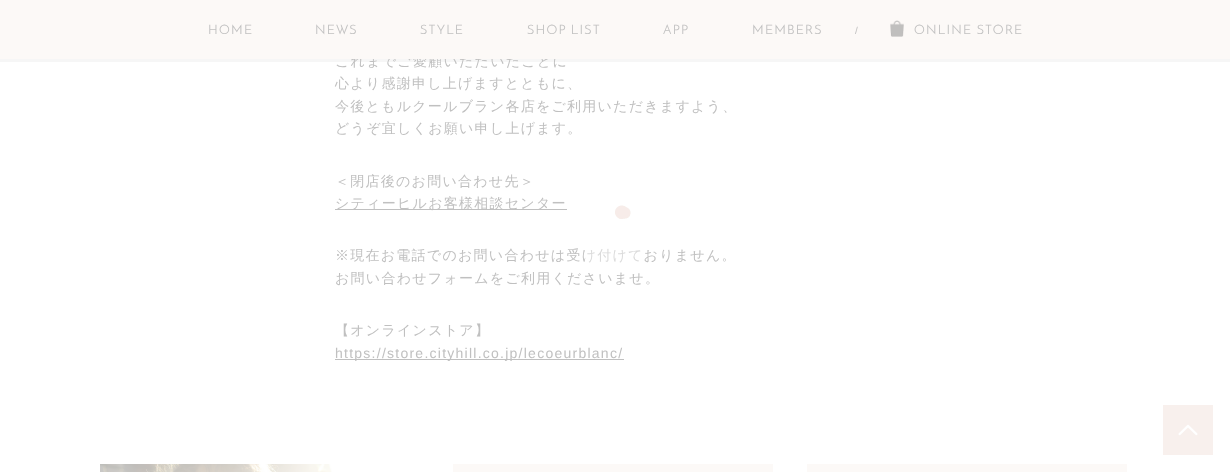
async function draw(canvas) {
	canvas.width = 1230;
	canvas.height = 472;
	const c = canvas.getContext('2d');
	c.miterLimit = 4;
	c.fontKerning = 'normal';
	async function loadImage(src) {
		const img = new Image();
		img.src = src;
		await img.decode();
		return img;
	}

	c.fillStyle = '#fff';
	c.fillRect(0, 0, 1230, 472);
	c.fillStyle = '#aaaaaa1a';
	c.fillRect(0, 59, 1230, 3);
	c.letterSpacing = '1.25px';
	c.font = '500 14px WenQuanYi Zen Hei';
	c.fillStyle = '#c0c0c0';
	c.fillText('これまでご愛顧いただいたことに', 335, 66);
	c.fillStyle = '#fcf9f7';
	c.fillRect(0, 0, 1230, 59);
	c.font = '13px Josefin Sans';
	c.fillStyle = '#c0c0c0';
	for (const [text, x, y] of [
		['HOME', 208, 34],
		['NEWS', 315, 34],
		['STYLE', 420, 34],
		['SHOP LIST', 527, 34],
		['APP', 663, 34],
		['MEMBERS', 752, 34],
	]) {
		c.fillText(text, x, y);
	}
	c.letterSpacing = '0px';
	c.font = '10px Liberation Sans';
	c.fillText('/', 855, 34);
	c.drawImage(await loadImage('img1.png'), 890, 20, 14, 17);
	c.letterSpacing = '1.25px';
	c.font = '13px Josefin Sans';
	c.fillText('ONLINE STORE', 914, 34);
	c.font = '500 14px WenQuanYi Zen Hei';
	for (const [text, x, y] of [
		['心より感謝申し上げますとともに、', 335, 88],
		['今後ともルクールブラン各店をご利用いただきますよう、', 335, 111],
		['どうぞ宜しくお願い申し上げます。', 335, 133],
		['＜閉店後のお問い合わせ先＞', 335, 186],
	]) {
		c.fillText(text, x, y);
	}
	c.fillRect(335, 209, 232, 1);
	for (const [text, x, y] of [
		['シティーヒルお客様相談センター', 335, 208],
		['※現在お電話でのお問い合わせは受け付けておりません。', 335, 260],
		['お問い合わせフォームをご利用くださいませ。', 335, 283],
		['【オンラインストア】', 335, 335],
	]) {
		c.fillText(text, x, y);
	}
	c.fillRect(335, 359, 289, 1);
	c.font = '14px Liberation Sans';
	c.fillText('https://store.cityhill.co.jp/lecoeurblanc/', 335, 358);
	c.drawImage(await loadImage('img2.png'), 100, 464, 232, 8);
	c.fillStyle = '#fcf9f7';
	c.fillRect(453, 464, 320, 8);
	c.fillRect(807, 464, 320, 8);
	c.drawImage(await loadImage('img3.png'), 1163, 405, 50, 50);
	c.drawImage(await loadImage('img4.png'), 585, 205, 56, 58);
}

draw(document.querySelector('canvas'));
